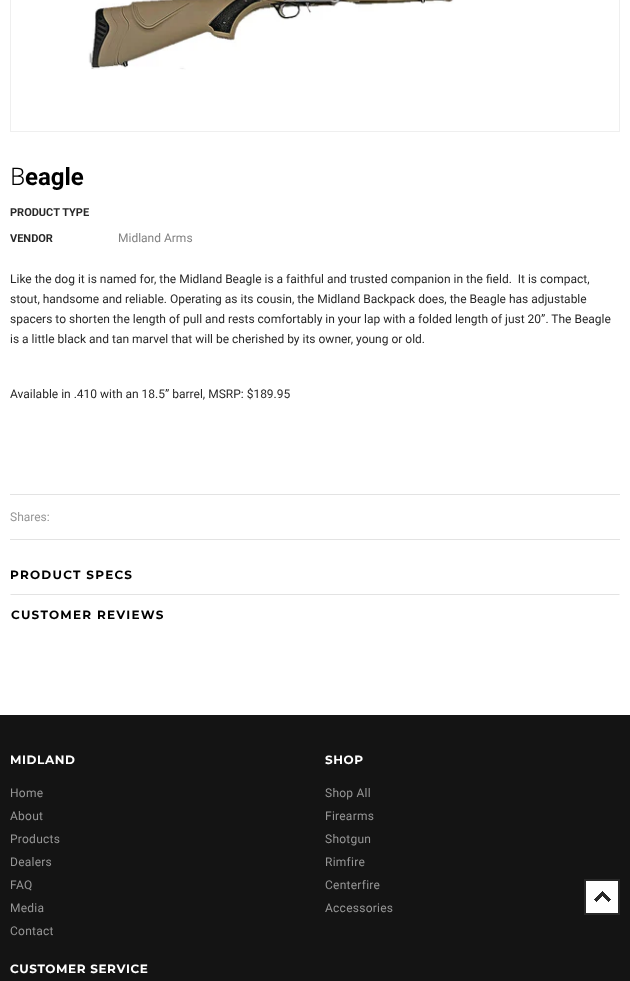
async function draw(canvas) {
	canvas.width = 630;
	canvas.height = 981;
	const c = canvas.getContext('2d');
	c.miterLimit = 4;
	c.fontKerning = 'normal';
	async function loadImage(src) {
		const img = new Image();
		img.src = src;
		await img.decode();
		return img;
	}

	c.fillStyle = '#fff';
	c.fillRect(0, 0, 630, 981);
	c.strokeStyle = '#efefef';
	c.strokeRect(10.5, -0.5, 609, 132);
	c.drawImage(await loadImage('img1.png'), 88, 0, 366, 70);
	c.font = '300 24px Noto Sans';
	c.fillStyle = '#000';
	c.fillText('B', 10, 185);
	c.font = 'bold 24px Roboto';
	c.fillText('eagle', 25, 185);
	c.font = 'bold 11px Roboto';
	c.fillStyle = '#282828';
	c.fillText('PRODUCT TYPE', 10, 216);
	c.fillText('VENDOR', 10, 242);
	c.font = '12px Roboto';
	c.fillStyle = '#828282';
	c.fillText('Midland Arms', 118, 242);
	c.fillStyle = '#282828';
	for (const [text, x, y] of [
		['Like the dog it is named for, the Midland Beagle is a faithful and trusted companion in the field.  It is compact,', 10, 283],
		['stout, handsome and reliable. Operating as its cousin, the Midland Backpack does, the Beagle has adjustable', 10, 303],
		['spacers to shorten the length of pull and rests comfortably in your lap with a folded length of just 20”. The Beagle', 10, 323],
		['is a little black and tan marvel that will be cherished by its owner, young or old.', 10, 343],
		['Available in .410 with an 18.5” barrel, MSRP: $189.95', 10, 398],
	]) {
		c.fillText(text, x, y);
	}
	c.fillStyle = '#e3e3e3';
	c.fillRect(10, 494, 610, 1);
	c.fillRect(10, 539, 610, 1);
	c.fillStyle = '#969696';
	c.fillText('Shares:', 10, 521);
	c.letterSpacing = '1.25px';
	c.font = 'bold 12px Montserrat';
	c.fillStyle = '#000';
	c.fillText('PRODUCT SPECS', 10, 579);
	c.fillStyle = '#e3e3e3';
	c.beginPath();
	c.moveTo(10, 594);
	c.lineTo(620, 594);
	c.lineTo(619, 595);
	c.lineTo(11, 595);
	c.closePath();
	c.fill();
	c.fillStyle = '#000';
	c.fillText('CUSTOMER REVIEWS', 11, 619);
	c.fillStyle = '#141414';
	c.fillRect(0, 715, 630, 266);
	c.letterSpacing = '0.6px';
	c.fillStyle = '#fff';
	c.fillText('MIDLAND', 10, 764);
	c.letterSpacing = '0.25px';
	c.font = '12px Roboto';
	c.fillStyle = '#969696';
	for (const [text, x, y] of [
		['Home', 10, 797],
		['About', 10, 820],
		['Products', 10, 843],
		['Dealers', 10, 866],
		['FAQ', 10, 889],
		['Media', 10, 912],
		['Contact', 10, 935],
	]) {
		c.fillText(text, x, y);
	}
	c.letterSpacing = '0.6px';
	c.font = 'bold 12px Montserrat';
	c.fillStyle = '#fff';
	c.fillText('SHOP', 325, 764);
	c.letterSpacing = '0.25px';
	c.font = '12px Roboto';
	c.fillStyle = '#969696';
	for (const [text, x, y] of [
		['Shop All', 325, 797],
		['Firearms', 325, 820],
		['Shotgun', 325, 843],
		['Rimfire', 325, 866],
		['Centerfire', 325, 889],
		['Accessories', 325, 912],
	]) {
		c.fillText(text, x, y);
	}
	c.letterSpacing = '0.6px';
	c.font = 'bold 12px Montserrat';
	c.fillStyle = '#fff';
	c.fillText('CUSTOMER SERVICE', 10, 973);
	c.fillRect(586, 881, 32, 32);
	c.drawImage(await loadImage('img2.png'), 584, 879, 36, 36);
}

draw(document.querySelector('canvas'));
